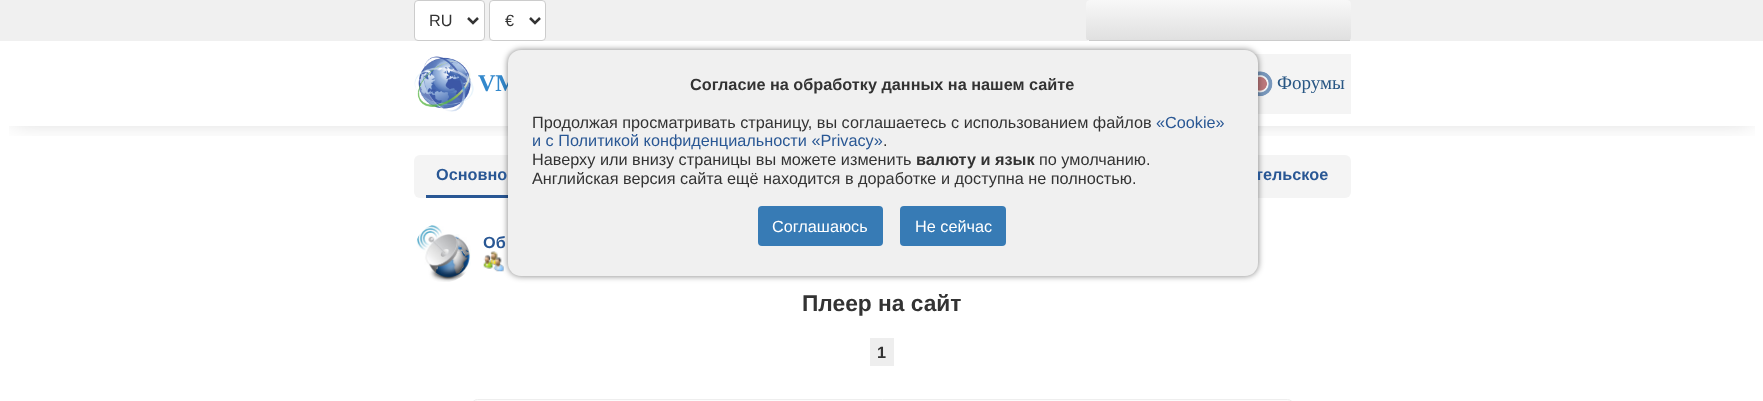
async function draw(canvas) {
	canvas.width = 1763;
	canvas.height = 401;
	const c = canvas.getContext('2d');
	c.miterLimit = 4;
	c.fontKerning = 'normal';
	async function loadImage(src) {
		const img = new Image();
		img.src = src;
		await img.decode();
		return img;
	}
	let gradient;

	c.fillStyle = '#fff';
	c.fillRect(0, 0, 1763, 401);
	c.fillStyle = '#f0f0f0';
	c.fillRect(0, 0, 1763, 41);
	c.save();
	c.beginPath();
	c.rect(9, 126, 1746, 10);
	c.clip();
	c.fillStyle = '#00000033';
	c.filter = 'blur(12.5px)';
	c.beginPath();
	c.rect(13, 60, 1738, 60);
	c.fill();
	c.filter = 'none';
	c.restore();
	c.fillStyle = '#fff';
	c.beginPath();
	c.roundRect(414.5, 0.5, 70, 40, 3.5);
	c.fill();
	c.strokeStyle = '#ccc';
	c.stroke();
	c.beginPath();
	c.moveTo(468, 18);
	c.lineTo(473, 23);
	c.lineTo(478, 18);
	c.strokeStyle = '#333';
	c.lineWidth = 2.5;
	c.stroke();
	c.font = '16.25px Liberation Sans';
	c.fillStyle = '#333';
	c.fillText('RU', 429, 26);
	c.fillStyle = '#fff';
	c.beginPath();
	c.roundRect(489.5, 0.5, 56, 40, 3.5);
	c.fill();
	c.strokeStyle = '#ccc';
	c.lineWidth = 1;
	c.stroke();
	c.beginPath();
	c.moveTo(530, 18);
	c.lineTo(535, 23);
	c.lineTo(540, 18);
	c.strokeStyle = '#333';
	c.lineWidth = 2.5;
	c.stroke();
	c.fillStyle = '#333';
	c.fillText('€', 505, 26);
	c.save();
	c.beginPath();
	c.roundRect(1086, 0, 265, 41, 4);
	c.clip();
	gradient = c.createLinearGradient(1219, 0, 1219, 40);
	gradient.addColorStop(0, '#f8f8f8');
	gradient.addColorStop(1, '#e0e0e0');
	c.fillStyle = gradient;
	c.beginPath();
	c.roundRect(1086, 0, 265, 40, [4, 4, 0, 0]);
	c.fill();
	gradient = c.createLinearGradient(1219, 40, 1219, 80);
	gradient.addColorStop(0, '#f8f8f8');
	gradient.addColorStop(1, '#e0e0e0');
	c.fillStyle = gradient;
	c.fillRect(1086, 40, 3, 1);
	c.restore();
	c.fillStyle = '#ccc';
	c.fillRect(1089, 40, 261, 1);
	c.drawImage(await loadImage('img1.png'), 414, 56, 60, 56);
	c.font = 'bold 24px Liberation Serif';
	c.fillStyle = '#38c';
	c.fillText('VM', 478, 91);
	c.fillStyle = '#f4f4f4';
	c.fillRect(1254, 54, 97, 60);
	c.drawImage(await loadImage('img2.png'), 1258, 71, 15, 26);
	c.font = '19px Liberation Serif';
	c.fillStyle = '#295784';
	c.fillText('Форумы', 1277, 89);
	c.fillStyle = '#f4f4f4';
	c.beginPath();
	c.roundRect(414, 155, 937, 43, 6);
	c.fill();
	c.fillStyle = '#295794';
	c.fillRect(426, 195, 82, 3);
	c.drawImage(await loadImage('img4.png'), 483, 251, 21, 21);
	c.fillStyle = '#00000080';
	c.filter = 'blur(3px)';
	c.beginPath();
	c.roundRect(508, 50, 750, 226, 13);
	c.fill();
	c.filter = 'none';
	c.font = 'bold 16.25px Liberation Sans';
	c.fillStyle = '#295794';
	c.fillText('тельское', 1255, 180);
	c.fillStyle = '#f0f0f0';
	c.beginPath();
	c.roundRect(508, 50, 750, 226, 13);
	c.fill();
	c.fillStyle = '#333';
	c.fillText('Согласие на обработку данных на нашем сайте', 690, 90);
	c.font = '16.25px Liberation Sans';
	c.fillText('Продолжая просматривать страницу, вы соглашаетесь с использованием файлов', 532, 128);
	c.fillStyle = '#295794';
	c.fillText('«Cookie»', 1156, 128);
	c.fillText('и с Политикой конфиденциальности «Privacy»', 532, 146);
	c.fillStyle = '#333';
	c.fillText('.', 883, 146);
	c.fillText('Наверху или внизу страницы вы можете изменить', 532, 165);
	c.font = 'bold 16.25px Liberation Sans';
	c.fillText('валюту и язык', 916, 165);
	c.font = '16.25px Liberation Sans';
	c.fillText('по умолчанию.', 1039, 165);
	c.fillText('Английская версия сайта ещё находится в доработке и доступна не полностью.', 532, 184);
	c.fillStyle = '#377bb5';
	c.beginPath();
	c.roundRect(758, 206, 125, 40, 4);
	c.fill();
	c.fillStyle = '#fff';
	c.fillText('Соглашаюсь', 772, 232);
	c.fillStyle = '#377bb5';
	c.beginPath();
	c.roundRect(900, 206, 106, 40, 4);
	c.fill();
	c.fillStyle = '#fff';
	c.fillText('Не сейчас', 915, 232);
	c.font = 'bold 16.25px Liberation Sans';
	c.fillStyle = '#295794';
	c.fillText('Основно', 436, 180);
	c.drawImage(await loadImage('img3.png'), 416, 225, 55, 57);
	c.fillText('Об', 483, 248);
	c.font = 'bold 22.75px Liberation Sans';
	c.fillStyle = '#333';
	c.fillText('Плеер на сайт', 802, 311);
	c.fillStyle = '#eee';
	c.fillRect(870, 338, 24, 28);
	c.font = 'bold 16.25px Liberation Sans';
	c.fillStyle = '#333';
	c.fillText('1', 877, 358);
	c.fillStyle = '#fcfcfc';
	c.beginPath();
	c.roundRect(471.5, 399.5, 822, 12, 9.5);
	c.fill();
	c.strokeStyle = '#eee';
	c.lineWidth = 1;
	c.stroke();
}

draw(document.querySelector('canvas'));
